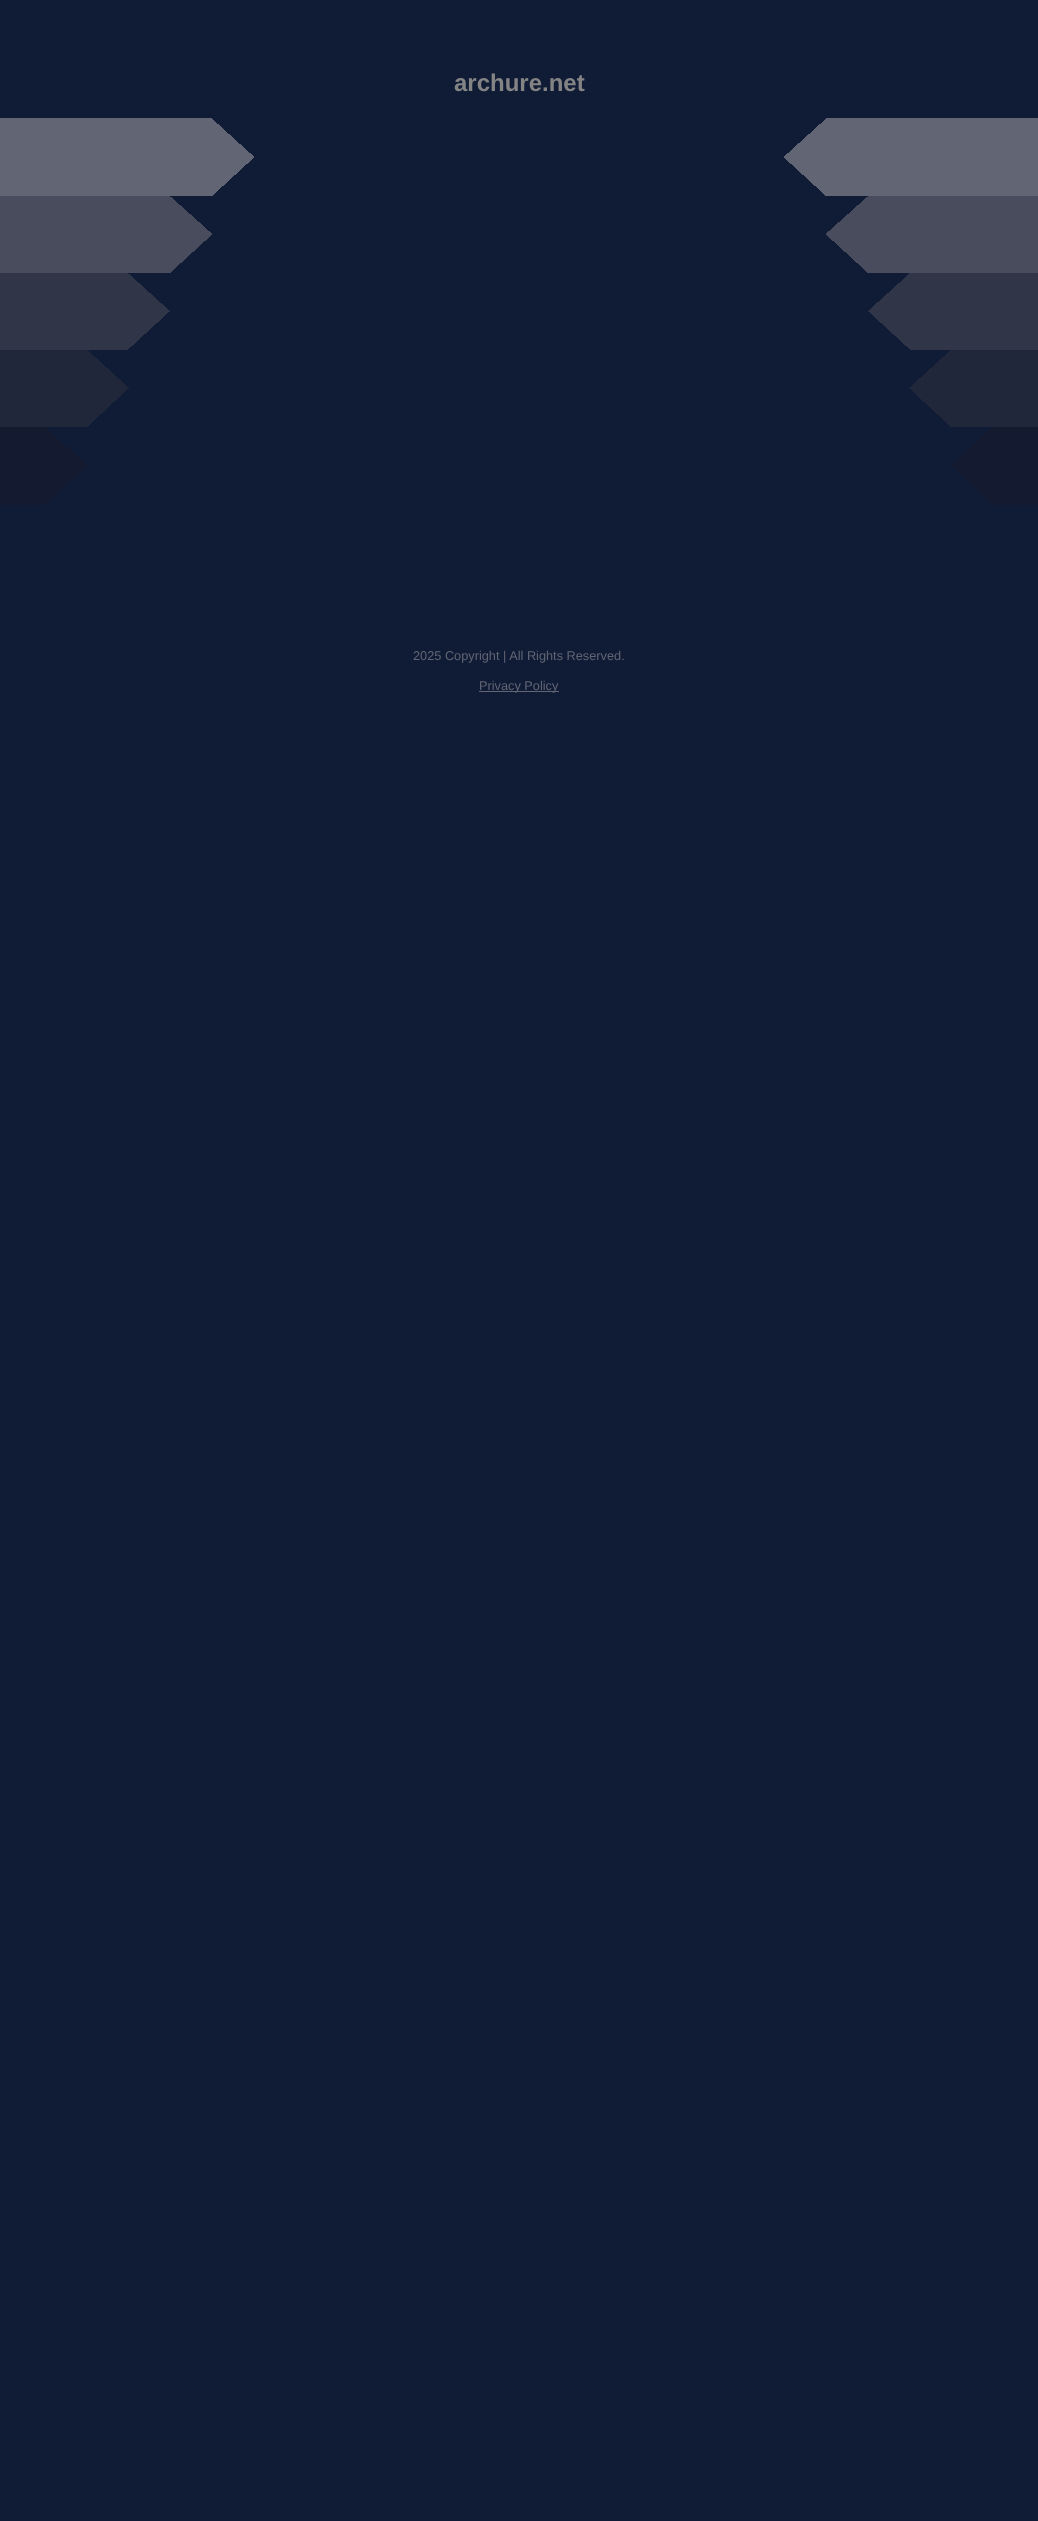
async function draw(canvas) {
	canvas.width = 1038;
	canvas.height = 2521;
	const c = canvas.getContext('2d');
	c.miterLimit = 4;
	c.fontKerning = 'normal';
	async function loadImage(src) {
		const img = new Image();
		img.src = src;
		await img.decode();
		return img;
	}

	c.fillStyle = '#101c36';
	c.fillRect(0, 0, 1038, 2521);
	c.drawImage(await loadImage('img1.png'), 0, 118, 1038, 387);
	c.font = 'bold 24px Liberation Sans';
	c.fillStyle = '#848484';
	c.fillText('archure.net', 454, 91);
	c.font = '12.75px Liberation Sans';
	c.fillStyle = '#626574';
	c.fillText('2025 Copyright | All Rights Reserved.', 413, 660);
	c.fillRect(479, 691, 80, 1);
	c.fillText('Privacy Policy', 479, 690);
}

draw(document.querySelector('canvas'));
